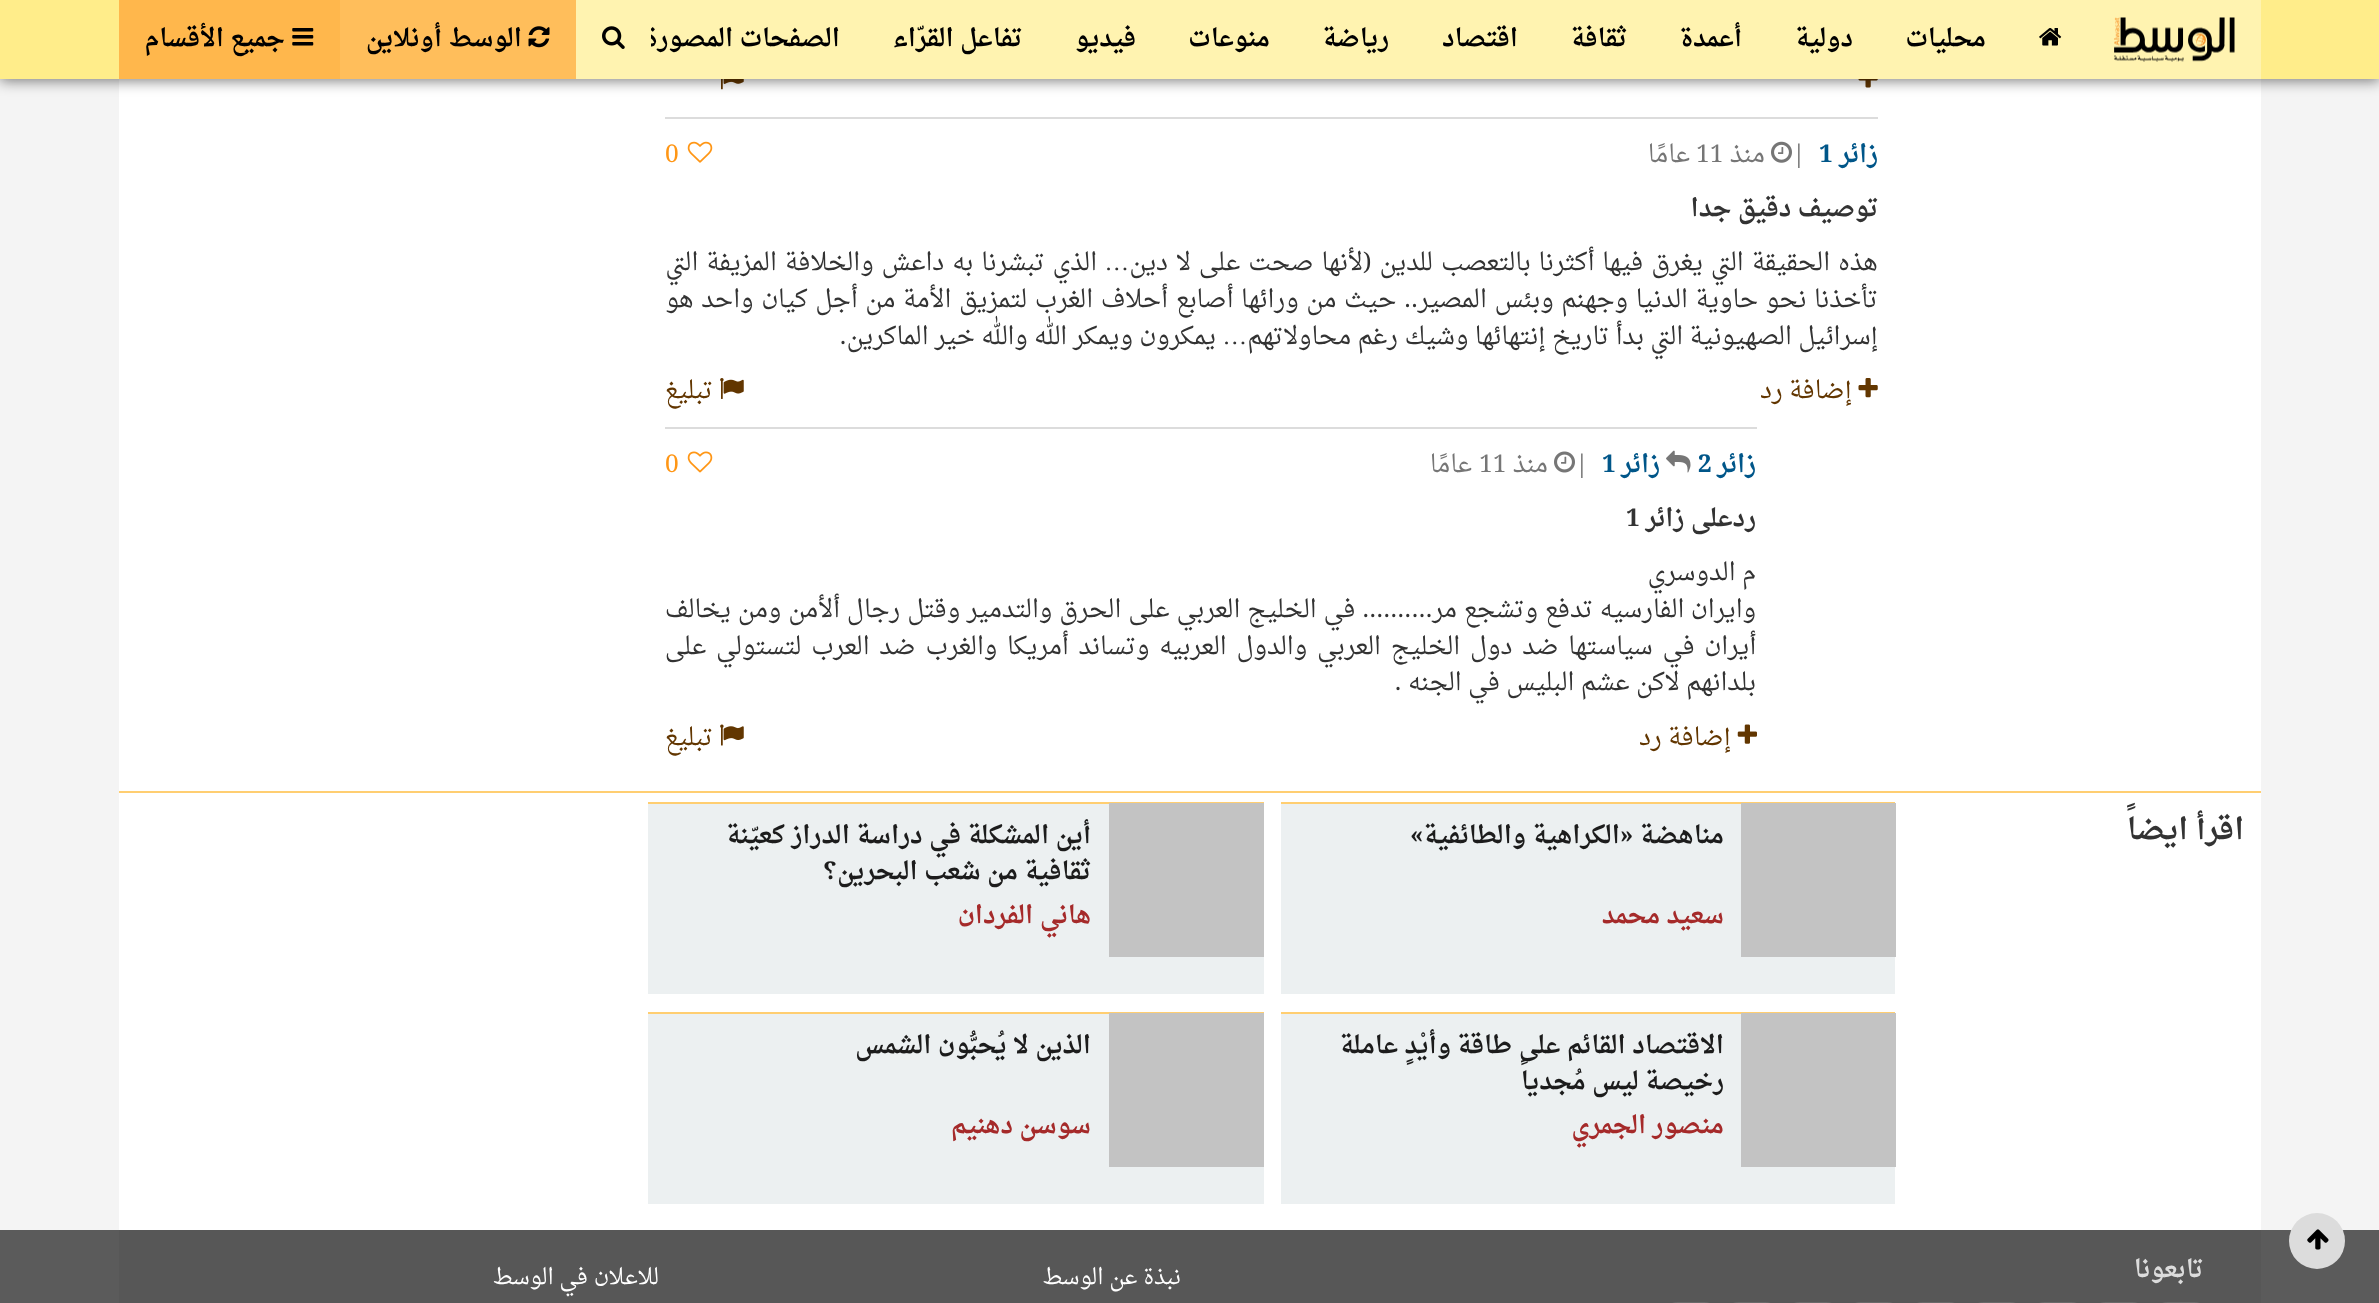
async function draw(canvas) {
	canvas.width = 2379;
	canvas.height = 1303;
	const c = canvas.getContext('2d');
	c.miterLimit = 4;
	c.fontKerning = 'normal';
	async function loadImage(src) {
		const img = new Image();
		img.src = src;
		await img.decode();
		return img;
	}

	c.fillStyle = '#f4f4f4';
	c.fillRect(0, 0, 2379, 1303);
	c.fillStyle = '#fff';
	c.fillRect(119, 79, 2142, 712);
	c.drawImage(await loadImage('img6.png'), 1858, 79, 20, 9);
	c.drawImage(await loadImage('img7.png'), 721, 79, 23, 11);
	c.fillStyle = '#00000080';
	c.filter = 'blur(7px)';
	c.beginPath();
	c.rect(0, 2, 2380, 79);
	c.fill();
	c.filter = 'none';
	c.fillStyle = '#ffed8a';
	c.fillRect(0, 0, 2379, 79);
	c.fillStyle = '#fff3b0';
	c.fillRect(651, 0, 1610, 79);
	c.drawImage(await loadImage('img1.png'), 2114, 17, 121, 45);
	c.drawImage(await loadImage('img2.png'), 2039, 28, 23, 18);
	c.direction = 'rtl';
	c.font = 'bold 24.5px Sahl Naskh';
	c.fillStyle = '#000';
	for (const [text, x, y] of [
		['محليات', 1986, 46],
		['دولية', 1853, 46],
		['أعمدة', 1742, 46],
		['ثقافة', 1627, 46],
		['اقتصاد', 1518, 46],
		['رياضة', 1389, 46],
		['منوعات', 1270, 46],
		['فيديو', 1136, 46],
		['تفاعل القرّاء', 1022, 46],
		['الصفحات المصورة', 840, 46],
	]) {
		c.fillText(text, x, y);
	}
	c.fillStyle = '#fff3b0';
	c.fillRect(576, 0, 75, 79);
	c.drawImage(await loadImage('img3.png'), 602, 26, 23, 23);
	c.fillStyle = '#ffbe5b';
	c.fillRect(340, 0, 236, 79);
	c.drawImage(await loadImage('img4.png'), 528, 26, 22, 22);
	c.fillStyle = '#000';
	c.fillText('الوسط', 522, 46);
	c.fillText('أونلاين', 442, 46);
	c.fillStyle = '#ffb74c';
	c.fillRect(119, 0, 221, 79);
	c.drawImage(await loadImage('img5.png'), 292, 28, 22, 18);
	c.fillStyle = '#000';
	c.fillText('جميع الأقسام', 285, 46);
	c.fillStyle = '#dcdcdc';
	c.fillRect(665, 117, 1213, 2);
	c.fillStyle = '#005689';
	c.fillText('زائر', 1878, 162);
	c.direction = 'ltr';
	c.fillText('1', 1819, 162);
	c.font = '24.5px Sahl Naskh';
	c.fillStyle = '#767676';
	c.fillText('|', 1792, 162);
	c.drawImage(await loadImage('img8.png'), 1771, 141, 21, 22);
	c.direction = 'rtl';
	c.fillText('منذ', 1765, 162);
	c.direction = 'ltr';
	c.fillText('11', 1696, 162);
	c.direction = 'rtl';
	c.fillText('عامًا', 1690, 162);
	c.drawImage(await loadImage('img9.png'), 687, 141, 26, 22);
	c.direction = 'ltr';
	c.fillStyle = '#ff9615';
	c.fillText('0', 665, 162);
	c.direction = 'rtl';
	c.font = 'bold 24.5px Sahl Naskh';
	c.fillStyle = '#333';
	c.fillText('توصيف دقيق جدا', 1878, 216);
	c.wordSpacing = '1.6px';
	c.font = '24.5px Sahl Naskh';
	c.fillText('هذه الحقيقة التي يغرق فيها أكثرنا بالتعصب للدين (لأنها صحت على لا دين', 1878, 270);
	c.wordSpacing = '0px';
	c.font = '24.5px Liberation Serif';
	c.fillText('…', 1129, 270);
	c.wordSpacing = '1.6px';
	c.font = '24.5px Sahl Naskh';
	c.fillText('الذي تبشرنا به داعش والخلافة المزيفة التي', 1097, 270);
	c.wordSpacing = '1.3px';
	c.fillText('تأخذنا نحو حاوية الدنيا وجهنم وبئس المصير.. حيث من ورائها أصابع أحلاف الغرب لتمزيق الأمة من أجل كيان واحد هو', 1878, 307);
	c.wordSpacing = '0px';
	c.fillText('إسرائيل الصهيونية التي بدأ تاريخ إنتهائها وشيك رغم محاولاتهم', 1878, 344);
	c.font = '24.5px Liberation Serif';
	c.fillText('…', 1247, 344);
	c.font = '24.5px Sahl Naskh';
	c.fillText('يمكرون ويمكر الله والله خير الماكرين.', 1216, 344);
	c.drawImage(await loadImage('img10.png'), 1858, 378, 20, 20);
	c.fillStyle = '#623600';
	c.fillText('إضافة رد', 1852, 398);
	c.drawImage(await loadImage('img11.png'), 720, 378, 24, 21);
	c.fillText('تبليغ', 713, 398);
	c.fillStyle = '#dcdcdc';
	c.fillRect(665, 427, 1092, 2);
	c.font = 'bold 24.5px Sahl Naskh';
	c.fillStyle = '#005689';
	c.fillText('زائر', 1756, 472);
	c.direction = 'ltr';
	c.fillText('2', 1698, 472);
	c.drawImage(await loadImage('img12.png'), 1666, 450, 25, 23);
	c.direction = 'rtl';
	c.fillText('زائر', 1660, 472);
	c.direction = 'ltr';
	c.fillText('1', 1602, 472);
	c.font = '24.5px Sahl Naskh';
	c.fillStyle = '#767676';
	c.fillText('|', 1575, 472);
	c.drawImage(await loadImage('img13.png'), 1554, 451, 21, 22);
	c.direction = 'rtl';
	c.fillText('منذ', 1548, 472);
	c.direction = 'ltr';
	c.fillText('11', 1479, 472);
	c.direction = 'rtl';
	c.fillText('عامًا', 1472, 472);
	c.drawImage(await loadImage('img14.png'), 687, 451, 26, 22);
	c.direction = 'ltr';
	c.fillStyle = '#ff9615';
	c.fillText('0', 665, 472);
	c.direction = 'rtl';
	c.font = 'bold 24.5px Sahl Naskh';
	c.fillStyle = '#333';
	c.fillText('ردعلى زائر', 1756, 526);
	c.direction = 'ltr';
	c.fillText('1', 1626, 526);
	c.direction = 'rtl';
	c.font = '24.5px Sahl Naskh';
	c.fillText('م الدوسري', 1756, 580);
	c.fillText('وايران الفارسيه', 1756, 617);
	c.wordSpacing = '0.5px';
	c.fillText('تدفع وتشجع مر.......... في الخليج العربي على الحرق والتدمير وقتل رجال ألأمن ومن يخالف', 1593, 617);
	c.wordSpacing = '3.4px';
	c.fillText('أيران في سياستها ضد دول الخليج العربي والدول العربيه وتساند أمريكا والغرب ضد العرب لتستولي على', 1756, 654);
	c.wordSpacing = '0px';
	c.fillText('بلدانهم لاكن عشم البليس في الجنه .', 1756, 690);
	c.drawImage(await loadImage('img15.png'), 1737, 724, 20, 20);
	c.fillStyle = '#623600';
	c.fillText('إضافة رد', 1731, 745);
	c.drawImage(await loadImage('img16.png'), 720, 724, 24, 22);
	c.fillText('تبليغ', 713, 745);
	c.fillStyle = '#fff';
	c.fillRect(119, 793, 2142, 437);
	c.fillStyle = '#ffce71';
	c.fillRect(119, 791, 2142, 2);
	c.font = 'bold 29.5px Sahl Naskh';
	c.fillStyle = '#333';
	c.fillText('اقرأ ايضاً', 2244, 839);
	for (const [x, y, w, h, color] of [
		[1281, 804, 614, 190, '#ecf0f1'],
		[1281, 802, 614, 2, '#ffce71'],
		[1741, 803, 155, 154, '#c3c3c3'],
	]) {
		c.fillStyle = color;
		c.fillRect(x, y, w, h);
	}
	c.font = 'bold 24.5px Sahl Naskh';
	c.fillStyle = '#1c1c1c';
	c.fillText('مناهضة «الكراهية والطائفية»', 1724, 843);
	c.fillStyle = '#a52a2a';
	c.fillText('سعيد محمد', 1724, 923);
	for (const [x, y, w, h, color] of [
		[648, 804, 616, 190, '#ecf0f1'],
		[648, 802, 616, 2, '#ffce71'],
		[1109, 803, 155, 154, '#c3c3c3'],
	]) {
		c.fillStyle = color;
		c.fillRect(x, y, w, h);
	}
	c.fillStyle = '#1c1c1c';
	for (const [text, x, y] of [
		['أين المشكلة في دراسة الدراز', 1091, 843],
		['كعيّنة', 785, 843],
		['ثقافية من شعب البحرين؟', 1091, 879],
	]) {
		c.fillText(text, x, y);
	}
	c.fillStyle = '#a52a2a';
	c.fillText('هاني الفردان', 1091, 923);
	for (const [x, y, w, h, color] of [
		[1281, 1014, 614, 190, '#ecf0f1'],
		[1281, 1012, 614, 2, '#ffce71'],
		[1741, 1013, 155, 154, '#c3c3c3'],
	]) {
		c.fillStyle = color;
		c.fillRect(x, y, w, h);
	}
	c.fillStyle = '#1c1c1c';
	for (const [text, x, y] of [
		['الاقتصاد القائم على طاقة', 1724, 1053],
		['وأيْدٍ عاملة', 1451, 1053],
		['رخيصة ليس مُجدياً', 1724, 1089],
	]) {
		c.fillText(text, x, y);
	}
	c.fillStyle = '#a52a2a';
	c.fillText('منصور الجمري', 1724, 1133);
	for (const [x, y, w, h, color] of [
		[648, 1014, 616, 190, '#ecf0f1'],
		[648, 1012, 616, 2, '#ffce71'],
		[1109, 1013, 155, 154, '#c3c3c3'],
	]) {
		c.fillStyle = color;
		c.fillRect(x, y, w, h);
	}
	c.fillStyle = '#1c1c1c';
	c.fillText('الذين لا يُحبُّون الشمس', 1091, 1053);
	c.fillStyle = '#a52a2a';
	c.fillText('سوسن دهنيم', 1091, 1133);
	c.fillStyle = '#5b5b5b';
	c.fillRect(0, 1230, 2379, 73);
	c.fillStyle = '#dcdcdc';
	c.beginPath();
	c.arc(2317, 1241, 28, 0, 2 * Math.PI);
	c.fill();
	c.drawImage(await loadImage('img17.png'), 2307, 1229, 22, 21);
	c.fillStyle = '#575757';
	c.fillRect(119, 1230, 2142, 73);
	c.fillStyle = '#dcdcdc';
	c.fillText('تابعونا', 2203, 1277);
	c.fillStyle = '#696969';
	c.beginPath();
	c.roundRect(2153, 1302, 56, 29, 28);
	c.fill();
	c.beginPath();
	c.roundRect(2091, 1302, 56, 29, 28);
	c.fill();
	c.beginPath();
	c.roundRect(2030, 1302, 56, 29, 28);
	c.fill();
	c.beginPath();
	c.roundRect(1969, 1302, 56, 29, 28);
	c.fill();
	c.beginPath();
	c.roundRect(1908, 1302, 56, 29, 28);
	c.fill();
	c.beginPath();
	c.roundRect(1846, 1302, 56, 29, 28);
	c.fill();
	c.beginPath();
	c.roundRect(1785, 1302, 56, 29, 28);
	c.fill();
	c.beginPath();
	c.roundRect(1724, 1302, 56, 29, 28);
	c.fill();
	c.beginPath();
	c.roundRect(1663, 1302, 56, 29, 28);
	c.fill();
	c.font = '22px Sahl Naskh';
	c.fillStyle = '#fff';
	c.fillText('نبذة عن الوسط', 1181, 1284);
	c.fillText('للاعلان في الوسط', 659, 1284);
}

draw(document.querySelector('canvas'));
